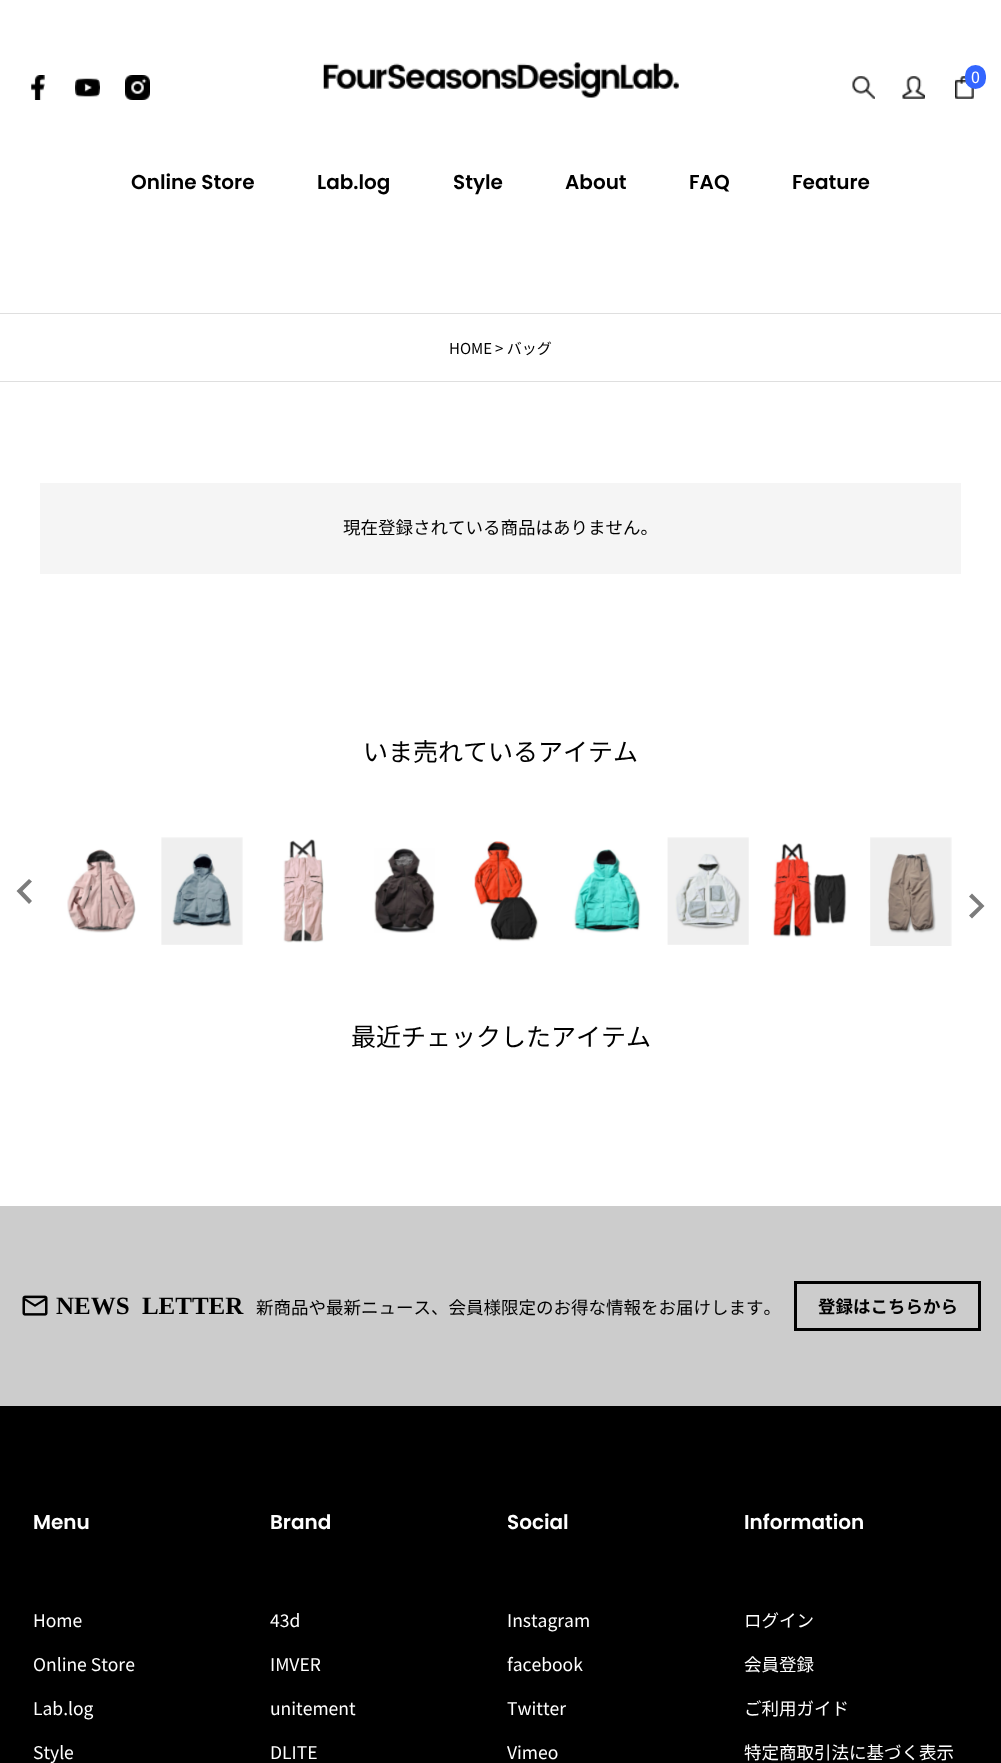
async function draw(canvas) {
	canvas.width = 1001;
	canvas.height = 1763;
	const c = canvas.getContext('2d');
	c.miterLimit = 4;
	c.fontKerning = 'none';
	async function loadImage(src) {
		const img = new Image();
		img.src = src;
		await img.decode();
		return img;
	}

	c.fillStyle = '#fff';
	c.fillRect(0, 0, 1001, 1763);
	c.drawImage(await loadImage('img1.png'), 31, 75, 14, 25);
	c.drawImage(await loadImage('img2.png'), 75, 78, 25, 19);
	c.drawImage(await loadImage('img3.png'), 125, 75, 25, 25);
	c.drawImage(await loadImage('img4.png'), 323, 62, 356, 36);
	c.drawImage(await loadImage('img5.png'), 852, 76, 23, 23);
	c.drawImage(await loadImage('img6.png'), 902, 76, 23, 23);
	c.drawImage(await loadImage('img7.png'), 955, 76, 19, 23);
	c.fillStyle = '#36f';
	c.beginPath();
	c.roundRect(965, 65, 21, 24, 10.5);
	c.fill();
	c.font = '16px Noto Sans JP';
	c.fillStyle = '#fff';
	c.fillText('0', 971, 83);
	c.font = '600 20px Poppins';
	c.fillStyle = '#000';
	for (const [text, x, y] of [
		['Online Store', 131, 189],
		['Lab.log', 317, 189],
		['Style', 453, 189],
		['About', 565, 189],
		['FAQ', 689, 189],
		['Feature', 792, 189],
	]) {
		c.fillText(text, x, y);
	}
	c.fillStyle = '#dfdfdf';
	c.fillRect(0, 313, 1001, 1);
	c.fillRect(0, 381, 1001, 1);
	c.font = '15px Noto Sans JP';
	c.fillStyle = '#000';
	c.fillText('HOME', 449, 354);
	c.fillText('> バッグ', 495, 354);
	c.fillStyle = '#f5f5f5';
	c.fillRect(40, 483, 921, 91);
	c.font = '17.5px Noto Sans JP';
	c.fillStyle = '#000';
	c.fillText('現在登録されている商品はありません。', 343, 534);
	c.font = '25px Noto Sans JP';
	c.fillText('いま売れているアイテム', 363, 761);
	c.fillStyle = '#7c7c7c';
	c.beginPath();
	c.moveTo(32, 881.5);
	c.lineTo(29, 879);
	c.lineTo(16.5, 891);
	c.lineTo(29, 904);
	c.lineTo(32, 901);
	c.lineTo(22.5, 891);
	c.closePath();
	c.fill();
	c.drawImage(await loadImage('img8.png'), 67, 849, 69, 84);
	c.drawImage(await loadImage('img9.png'), 161, 837, 82, 108);
	c.drawImage(await loadImage('img10.png'), 283, 839, 41, 104);
	c.drawImage(await loadImage('img11.png'), 374, 848, 61, 85);
	c.drawImage(await loadImage('img12.png'), 474, 841, 65, 101);
	c.drawImage(await loadImage('img13.png'), 573, 849, 68, 84);
	c.drawImage(await loadImage('img14.png'), 667, 837, 82, 108);
	c.drawImage(await loadImage('img15.png'), 772, 843, 75, 95);
	c.drawImage(await loadImage('img16.png'), 870, 837, 82, 109);
	c.beginPath();
	c.moveTo(969, 915.5);
	c.lineTo(972, 918.5);
	c.lineTo(984.5, 906);
	c.lineTo(972, 893.5);
	c.lineTo(969, 896.5);
	c.lineTo(979, 906);
	c.closePath();
	c.fill();
	c.fillStyle = '#000';
	c.fillText('最近チェックしたアイテム', 351, 1046);
	c.fillStyle = '#ccc';
	c.fillRect(0, 1206, 1001, 200);
	c.drawImage(await loadImage('img17.png'), 22, 1295, 26, 21);
	c.wordSpacing = '6px';
	c.font = 'bold 25px Liberation Serif';
	c.fillStyle = '#000';
	c.fillText('NEWS LETTER', 56, 1314);
	c.wordSpacing = '0px';
	c.font = '17.5px Noto Sans JP';
	c.fillText('新商品や最新ニュース、会員様限定のお得な情報をお届けします。', 256, 1314);
	c.strokeStyle = '#000';
	c.lineWidth = 3;
	c.strokeRect(795.5, 1282.5, 184, 47);
	c.font = 'bold 17.5px Noto Sans JP';
	c.fillText('登録はこちらから', 818, 1313);
	c.fillRect(0, 1406, 1001, 357);
	c.font = '600 20px Poppins';
	c.fillStyle = '#fff';
	c.fillText('Menu', 33, 1529);
	c.font = '17.5px Noto Sans JP';
	for (const [text, x, y] of [
		['Home', 33, 1627],
		['Online Store', 33, 1671],
		['Lab.log', 33, 1715],
		['Style', 33, 1759],
	]) {
		c.fillText(text, x, y);
	}
	c.font = '600 20px Poppins';
	c.fillText('Brand', 270, 1529);
	c.font = '17.5px Noto Sans JP';
	for (const [text, x, y] of [
		['43d', 270, 1627],
		['IMVER', 270, 1671],
		['unitement', 270, 1715],
		['DLITE', 270, 1759],
	]) {
		c.fillText(text, x, y);
	}
	c.font = '600 20px Poppins';
	c.fillText('Social', 507, 1529);
	c.font = '17.5px Noto Sans JP';
	for (const [text, x, y] of [
		['Instagram', 507, 1627],
		['facebook', 507, 1671],
		['Twitter', 507, 1715],
		['Vimeo', 507, 1759],
	]) {
		c.fillText(text, x, y);
	}
	c.font = '600 20px Poppins';
	c.fillText('Information', 744, 1529);
	c.font = '17.5px Noto Sans JP';
	for (const [text, x, y] of [
		['ログイン', 744, 1627],
		['会員登録', 744, 1671],
		['ご利用ガイド', 744, 1715],
		['特定商取引法に基づく表示', 744, 1759],
	]) {
		c.fillText(text, x, y);
	}
}

draw(document.querySelector('canvas'));
